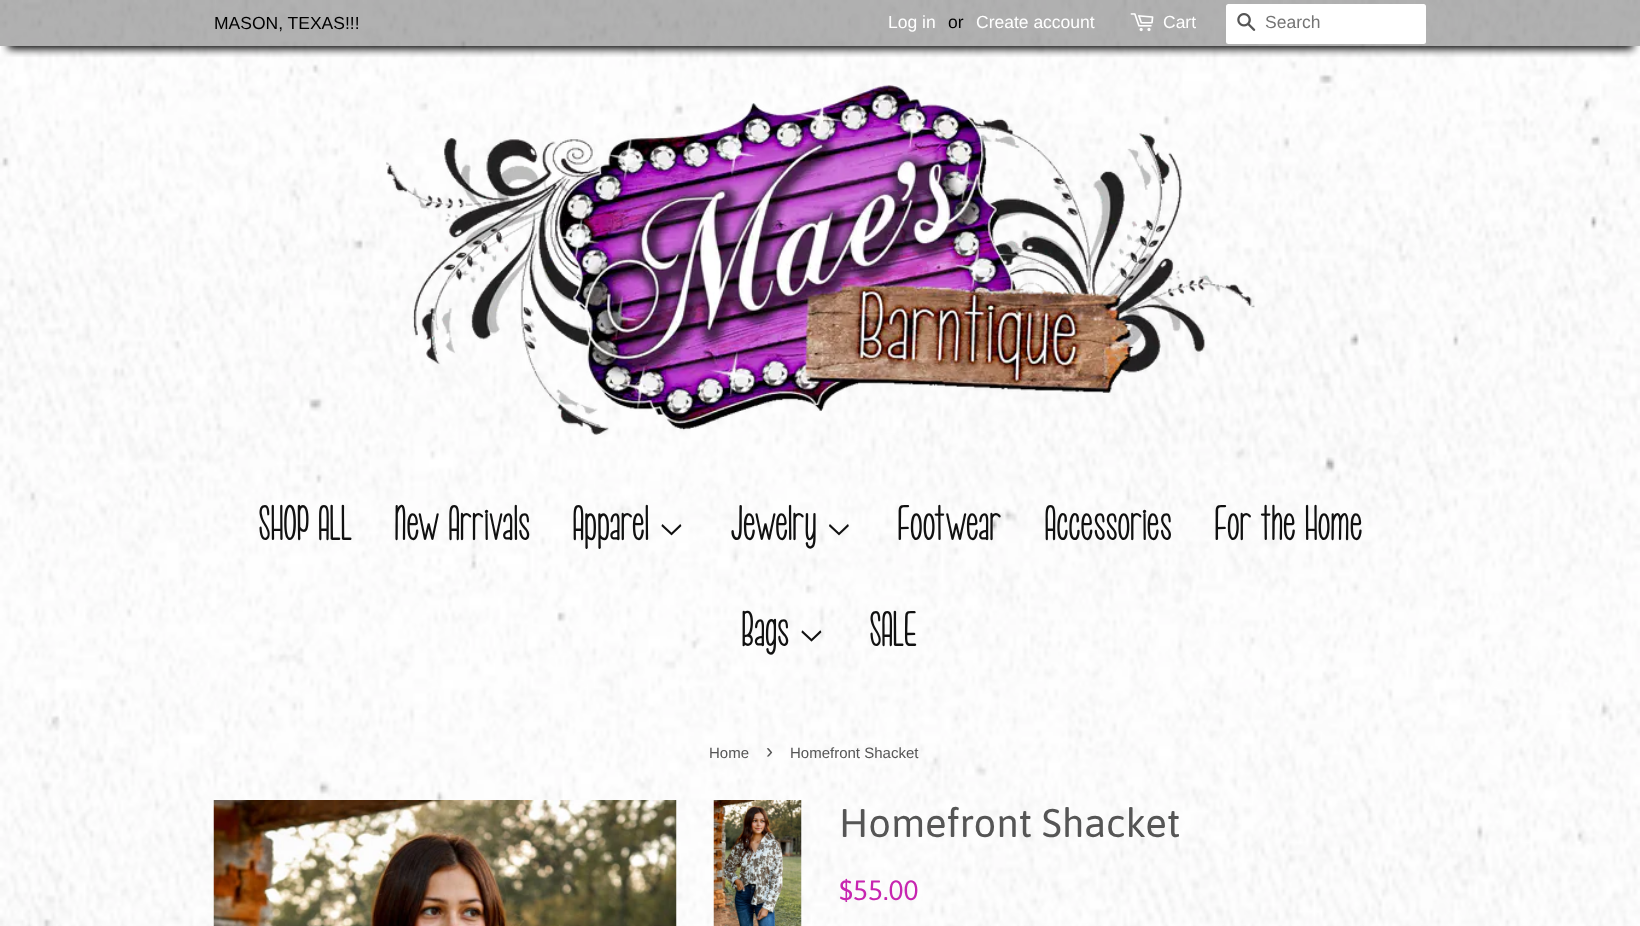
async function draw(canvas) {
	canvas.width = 1640;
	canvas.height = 926;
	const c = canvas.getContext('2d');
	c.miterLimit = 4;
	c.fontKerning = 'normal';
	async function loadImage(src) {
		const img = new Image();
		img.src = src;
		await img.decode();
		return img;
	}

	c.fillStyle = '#fff';
	c.fillRect(0, 0, 1640, 926);
	c.drawImage(await loadImage('img1.png'), 0, 922, 1640, 4);
	c.drawImage(await loadImage('img2.png'), 0, 0, 1640, 926);
	c.save();
	c.beginPath();
	c.rect(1, 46, 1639, 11);
	c.clip();
	c.fillStyle = '#000';
	c.filter = 'blur(4px)';
	c.beginPath();
	c.rect(8, 18, 1625, 31);
	c.fill();
	c.filter = 'none';
	c.restore();
	c.fillStyle = '#0000004d';
	c.fillRect(0, 0, 1640, 46);
	c.font = '17.5px Liberation Sans';
	c.fillStyle = '#000';
	c.fillText('MASON, TEXAS!!!', 214, 29);
	c.fillStyle = '#fff';
	c.fillText('Log in', 888, 28);
	c.fillStyle = '#000';
	c.fillText('or', 948, 28);
	c.fillStyle = '#fff';
	c.fillText('Create account', 976, 28);
	c.drawImage(await loadImage('img3.png'), 1130, 13, 24, 19);
	c.fillText('Cart', 1163, 28);
	c.beginPath();
	c.roundRect(1226, 4, 200, 40, 2.5);
	c.fill();
	c.drawImage(await loadImage('img4.png'), 1237, 13, 19, 18);
	c.fillStyle = '#757575';
	c.fillText('Search', 1265, 28);
	c.drawImage(await loadImage('img5.png'), 386, 84, 869, 351);
	c.letterSpacing = '1.9px';
	c.font = 'bold 40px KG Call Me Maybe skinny';
	c.fillStyle = '#111';
	for (const [text, x, y] of [
		['SHOP ALL', 259, 540],
		['New Arrivals', 395, 540],
		['Apparel', 573, 540],
	]) {
		c.fillText(text, x, y);
	}
	c.drawImage(await loadImage('img6.png'), 661, 524, 21, 12);
	c.fillText('Jewelry', 731, 540);
	c.drawImage(await loadImage('img7.png'), 829, 524, 20, 12);
	for (const [text, x, y] of [
		['Footwear', 898, 540],
		['Accessories', 1045, 540],
		['For the Home', 1215, 540],
		['Bags', 742, 646],
	]) {
		c.fillText(text, x, y);
	}
	c.drawImage(await loadImage('img8.png'), 801, 630, 21, 12);
	c.fillText('SALE', 870, 646);
	c.letterSpacing = '0px';
	c.font = '15px Liberation Sans';
	c.fillStyle = '#555';
	c.fillText('Home', 709, 758);
	c.font = '21px Liberation Sans';
	c.fillText('›', 766, 758);
	c.font = '15px Liberation Sans';
	c.fillText('Homefront Shacket', 790, 758);
	c.drawImage(await loadImage('img9.png'), 213, 800, 464, 126);
	c.drawImage(await loadImage('img10.png'), 713, 800, 89, 126);
	c.font = '40px Asap';
	c.fillText('Homefront Shacket', 839, 837);
	c.font = '28px Asap';
	c.fillStyle = '#c725b0';
	c.fillText('$55.00', 839, 900);
}

draw(document.querySelector('canvas'));
